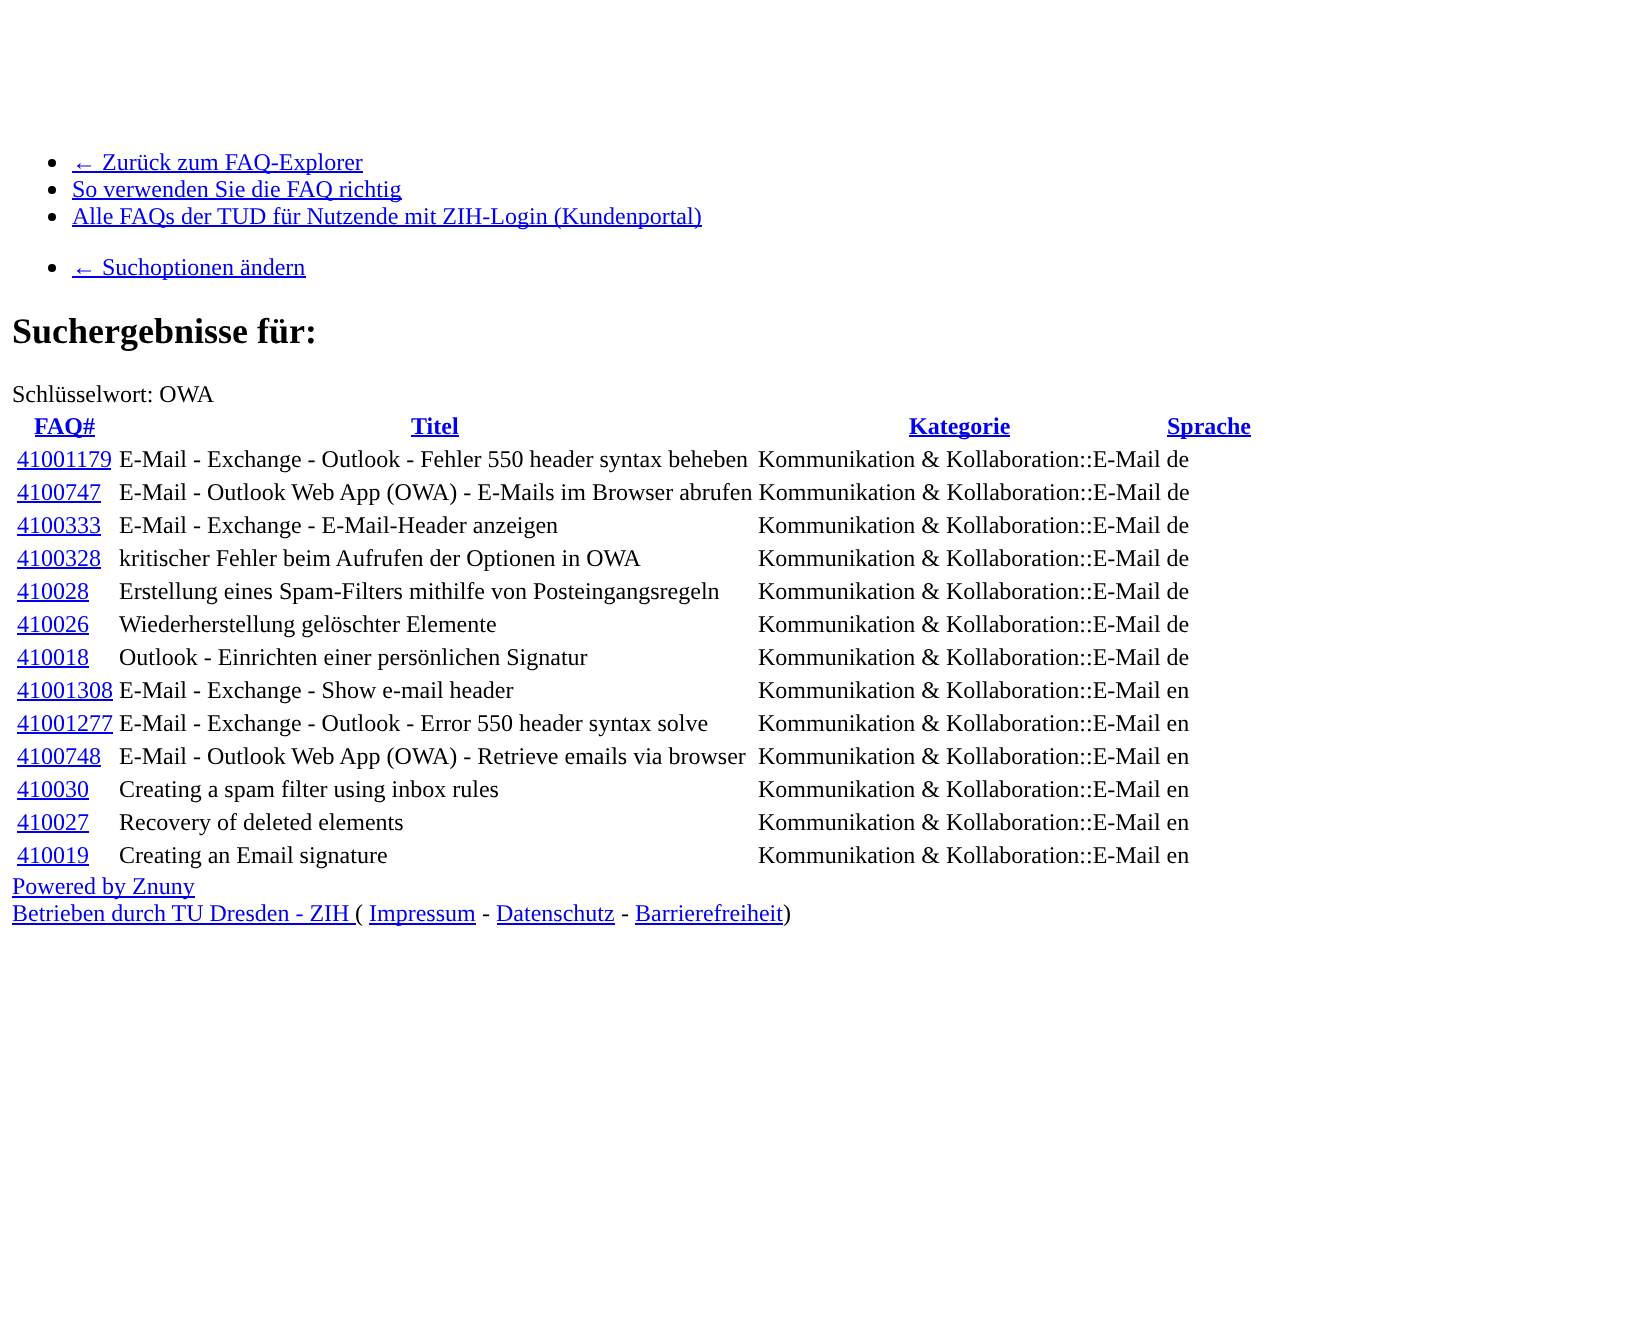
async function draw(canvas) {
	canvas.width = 1639;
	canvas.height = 1337;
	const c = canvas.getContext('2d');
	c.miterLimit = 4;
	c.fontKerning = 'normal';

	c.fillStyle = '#fff';
	c.fillRect(0, 0, 1639, 1337);
	c.fillStyle = '#000';
	c.beginPath();
	c.arc(52, 163, 4, 0, 2 * Math.PI);
	c.fill();
	c.fillStyle = '#00e';
	c.fillRect(72, 171, 291, 2);
	c.font = '24px Liberation Serif';
	c.fillText('← Zurück zum FAQ-Explorer', 72, 170);
	c.fillStyle = '#000';
	c.beginPath();
	c.arc(52, 190, 4, 0, 2 * Math.PI);
	c.fill();
	c.fillStyle = '#00e';
	c.fillRect(72, 198, 330, 2);
	c.fillText('So verwenden Sie die FAQ richtig', 72, 197);
	c.fillStyle = '#000';
	c.beginPath();
	c.arc(52, 217, 4, 0, 2 * Math.PI);
	c.fill();
	c.fillStyle = '#00e';
	c.fillRect(72, 225, 630, 2);
	c.fillText('Alle FAQs der TUD für Nutzende mit ZIH-Login (Kundenportal)', 72, 224);
	c.fillStyle = '#000';
	c.beginPath();
	c.arc(52, 268, 4, 0, 2 * Math.PI);
	c.fill();
	c.fillStyle = '#00e';
	c.fillRect(72, 276, 234, 2);
	c.fillText('← Suchoptionen ändern', 72, 275);
	c.font = 'bold 36px Liberation Serif';
	c.fillStyle = '#000';
	c.fillText('Suchergebnisse für:', 12, 343);
	c.font = '24px Liberation Serif';
	c.fillText('Schlüsselwort: OWA', 12, 402);
	c.fillStyle = '#00e';
	c.fillRect(35, 435, 60, 2);
	c.font = 'bold 24px Liberation Serif';
	c.fillText('FAQ#', 34, 434);
	c.fillText('Titel', 411, 434);
	c.fillRect(411, 435, 48, 2);
	c.fillRect(909, 435, 101, 2);
	c.fillText('Kategorie', 909, 434);
	c.fillRect(1167, 435, 84, 2);
	c.fillText('Sprache', 1167, 434);
	c.font = '24px Liberation Serif';
	c.fillText('41001179', 17, 467);
	c.fillRect(17, 468, 94, 2);
	c.fillStyle = '#000';
	c.fillText('E-Mail - Exchange - Outlook - Fehler 550 header syntax beheben', 119, 467);
	c.fillText('Kommunikation & Kollaboration::E-Mail de', 758, 467);
	c.fillStyle = '#00e';
	c.fillText('4100747', 17, 500);
	c.fillRect(17, 501, 84, 2);
	c.fillStyle = '#000';
	c.fillText('E-Mail - Outlook Web App (OWA) - E-Mails im Browser abrufen Kommunikation & Kollaboration::E-Mail de', 119, 500);
	c.fillStyle = '#00e';
	c.fillText('4100333', 17, 533);
	c.fillRect(17, 534, 84, 2);
	c.fillStyle = '#000';
	c.fillText('E-Mail - Exchange - E-Mail-Header anzeigen', 119, 533);
	c.fillText('Kommunikation & Kollaboration::E-Mail de', 758, 533);
	c.fillStyle = '#00e';
	c.fillText('4100328', 17, 566);
	c.fillRect(17, 567, 84, 2);
	c.fillStyle = '#000';
	c.fillText('kritischer Fehler beim Aufrufen der Optionen in OWA', 119, 566);
	c.fillText('Kommunikation & Kollaboration::E-Mail de', 758, 566);
	c.fillStyle = '#00e';
	c.fillText('410028', 17, 599);
	c.fillRect(17, 600, 72, 2);
	c.fillStyle = '#000';
	c.fillText('Erstellung eines Spam-Filters mithilfe von Posteingangsregeln', 119, 599);
	c.fillText('Kommunikation & Kollaboration::E-Mail de', 758, 599);
	c.fillStyle = '#00e';
	c.fillText('410026', 17, 632);
	c.fillRect(17, 633, 72, 2);
	c.fillStyle = '#000';
	c.fillText('Wiederherstellung gelöschter Elemente', 119, 632);
	c.fillText('Kommunikation & Kollaboration::E-Mail de', 758, 632);
	c.fillStyle = '#00e';
	c.fillText('410018', 17, 665);
	c.fillRect(17, 666, 72, 2);
	c.fillStyle = '#000';
	c.fillText('Outlook - Einrichten einer persönlichen Signatur', 119, 665);
	c.fillText('Kommunikation & Kollaboration::E-Mail de', 758, 665);
	c.fillStyle = '#00e';
	c.fillText('41001308', 17, 698);
	c.fillRect(17, 699, 96, 2);
	c.fillStyle = '#000';
	c.fillText('E-Mail - Exchange - Show e-mail header', 119, 698);
	c.fillText('Kommunikation & Kollaboration::E-Mail en', 758, 698);
	c.fillStyle = '#00e';
	c.fillText('41001277', 17, 731);
	c.fillRect(17, 732, 96, 2);
	c.fillStyle = '#000';
	c.fillText('E-Mail - Exchange - Outlook - Error 550 header syntax solve', 119, 731);
	c.fillText('Kommunikation & Kollaboration::E-Mail en', 758, 731);
	c.fillStyle = '#00e';
	c.fillText('4100748', 17, 764);
	c.fillRect(17, 765, 84, 2);
	c.fillStyle = '#000';
	c.fillText('E-Mail - Outlook Web App (OWA) - Retrieve emails via browser', 119, 764);
	c.fillText('Kommunikation & Kollaboration::E-Mail en', 758, 764);
	c.fillStyle = '#00e';
	c.fillText('410030', 17, 797);
	c.fillRect(17, 798, 72, 2);
	c.fillStyle = '#000';
	c.fillText('Creating a spam filter using inbox rules', 119, 797);
	c.fillText('Kommunikation & Kollaboration::E-Mail en', 758, 797);
	c.fillStyle = '#00e';
	c.fillText('410027', 17, 830);
	c.fillRect(17, 831, 72, 2);
	c.fillStyle = '#000';
	c.fillText('Recovery of deleted elements', 119, 830);
	c.fillText('Kommunikation & Kollaboration::E-Mail en', 758, 830);
	c.fillStyle = '#00e';
	c.fillText('410019', 17, 863);
	c.fillRect(17, 864, 72, 2);
	c.fillStyle = '#000';
	c.fillText('Creating an Email signature', 119, 863);
	c.fillText('Kommunikation & Kollaboration::E-Mail en', 758, 863);
	c.fillStyle = '#00e';
	c.fillRect(12, 896, 183, 2);
	c.fillText('Powered by Znuny', 12, 894);
	c.fillText('Betrieben durch TU Dresden - ZIH', 12, 921);
	c.fillRect(12, 923, 344, 2);
	c.fillStyle = '#000';
	c.fillText('(', 355, 921);
	c.fillStyle = '#00e';
	c.fillRect(369, 923, 107, 2);
	c.fillText('Impressum', 369, 921);
	c.fillStyle = '#000';
	c.fillText('-', 482, 921);
	c.fillStyle = '#00e';
	c.fillText('Datenschutz', 496, 921);
	c.fillRect(497, 923, 118, 2);
	c.fillStyle = '#000';
	c.fillText('-', 621, 921);
	c.fillStyle = '#00e';
	c.fillText('Barrierefreiheit', 635, 921);
	c.fillRect(635, 923, 148, 2);
	c.fillStyle = '#000';
	c.fillText(')', 783, 921);
}

draw(document.querySelector('canvas'));
